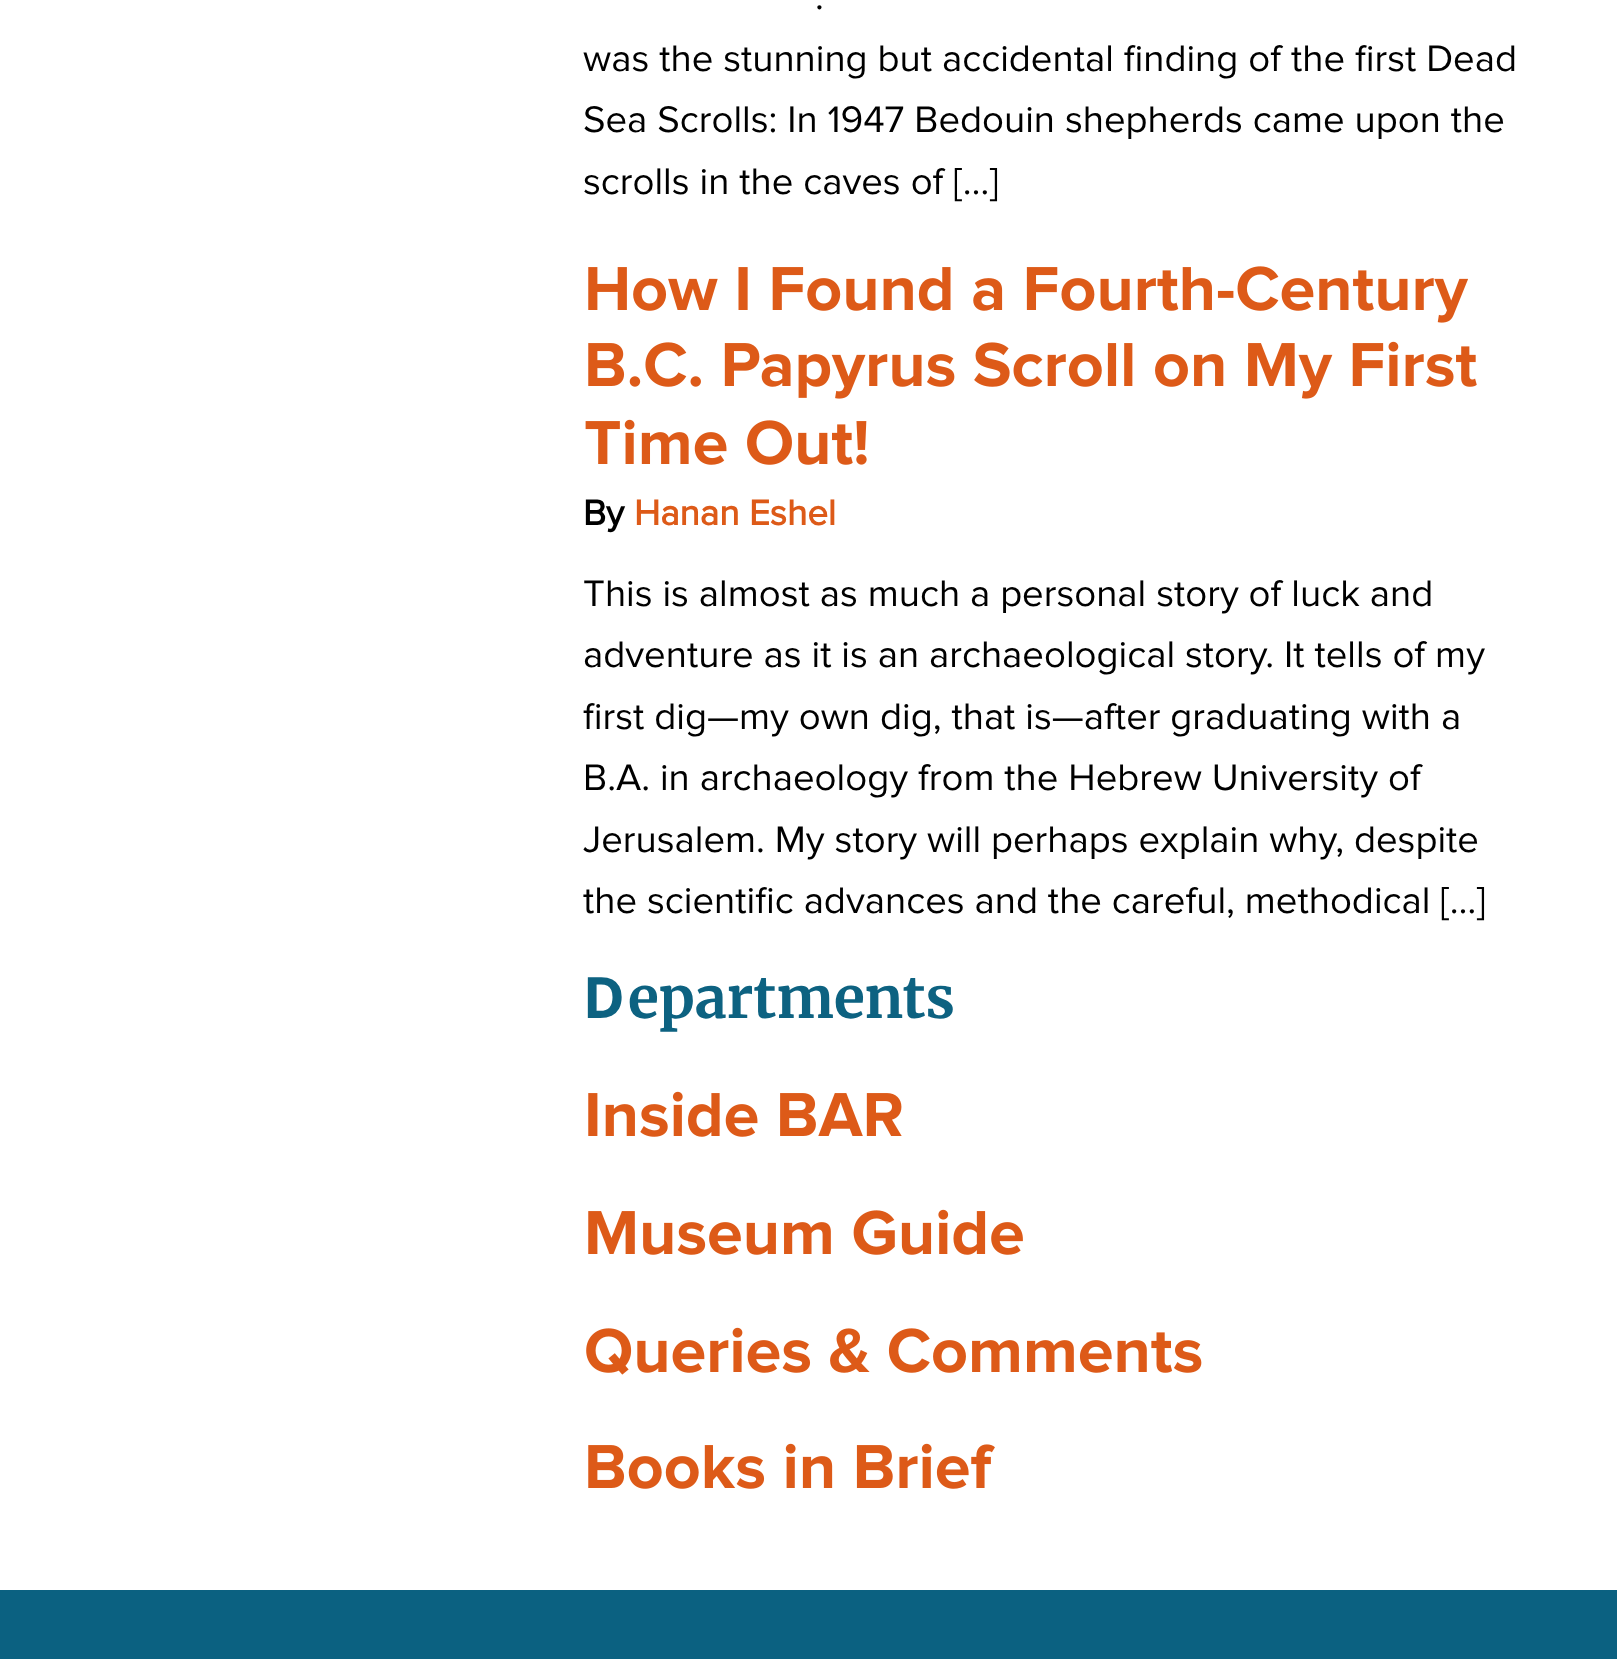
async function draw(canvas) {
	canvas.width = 1617;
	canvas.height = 1659;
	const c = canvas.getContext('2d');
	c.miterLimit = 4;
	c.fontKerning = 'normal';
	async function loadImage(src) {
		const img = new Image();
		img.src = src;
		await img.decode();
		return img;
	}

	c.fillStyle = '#fff';
	c.fillRect(0, 0, 1617, 1659);
	c.font = '38.4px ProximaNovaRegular';
	c.fillStyle = '#000';
	for (const [text, x, y] of [
		['.', 815, 9],
		['was the stunning but accidental finding of the first Dead', 583, 71],
		['Sea Scrolls: In 1947 Bedouin shepherds came upon the', 583, 132],
		['scrolls in the caves of […]', 583, 194],
	]) {
		c.fillText(text, x, y);
	}
	c.drawImage(await loadImage('img1.png'), 588, 266, 880, 57);
	c.drawImage(await loadImage('img2.png'), 588, 341, 889, 58);
	c.drawImage(await loadImage('img3.png'), 585, 419, 282, 46);
	c.font = 'bold 36.75px ProximaNovaRegular';
	c.fillText('By', 583, 525);
	c.fillStyle = '#dd5a18';
	c.fillText('Hanan Eshel', 634, 525);
	c.font = '38.4px ProximaNovaRegular';
	c.fillStyle = '#000';
	for (const [text, x, y] of [
		['This is almost as much a personal story of luck and', 583, 606],
		['adventure as it is an archaeological story. It tells of my', 583, 667],
		['first dig—my own dig, that is—after graduating with a', 583, 729],
		['B.A. in archaeology from the Hebrew University of', 583, 790],
		['Jerusalem. My story will perhaps explain why, despite', 583, 852],
		['the scientific advances and the careful, methodical […]', 583, 913],
	]) {
		c.fillText(text, x, y);
	}
	c.font = 'bold 57px Noto Sans';
	c.fillStyle = '#0d6281';
	c.fillText('D', 583, 1018);
	c.font = 'bold 57px Merriweather';
	c.fillText('epartments', 628, 1018);
	c.drawImage(await loadImage('img4.png'), 588, 1091, 314, 46);
	c.drawImage(await loadImage('img5.png'), 588, 1209, 435, 46);
	c.drawImage(await loadImage('img6.png'), 586, 1327, 616, 48);
	c.drawImage(await loadImage('img7.png'), 588, 1443, 407, 46);
	c.fillStyle = '#0b6181';
	c.fillRect(0, 1590, 1617, 69);
}

draw(document.querySelector('canvas'));
